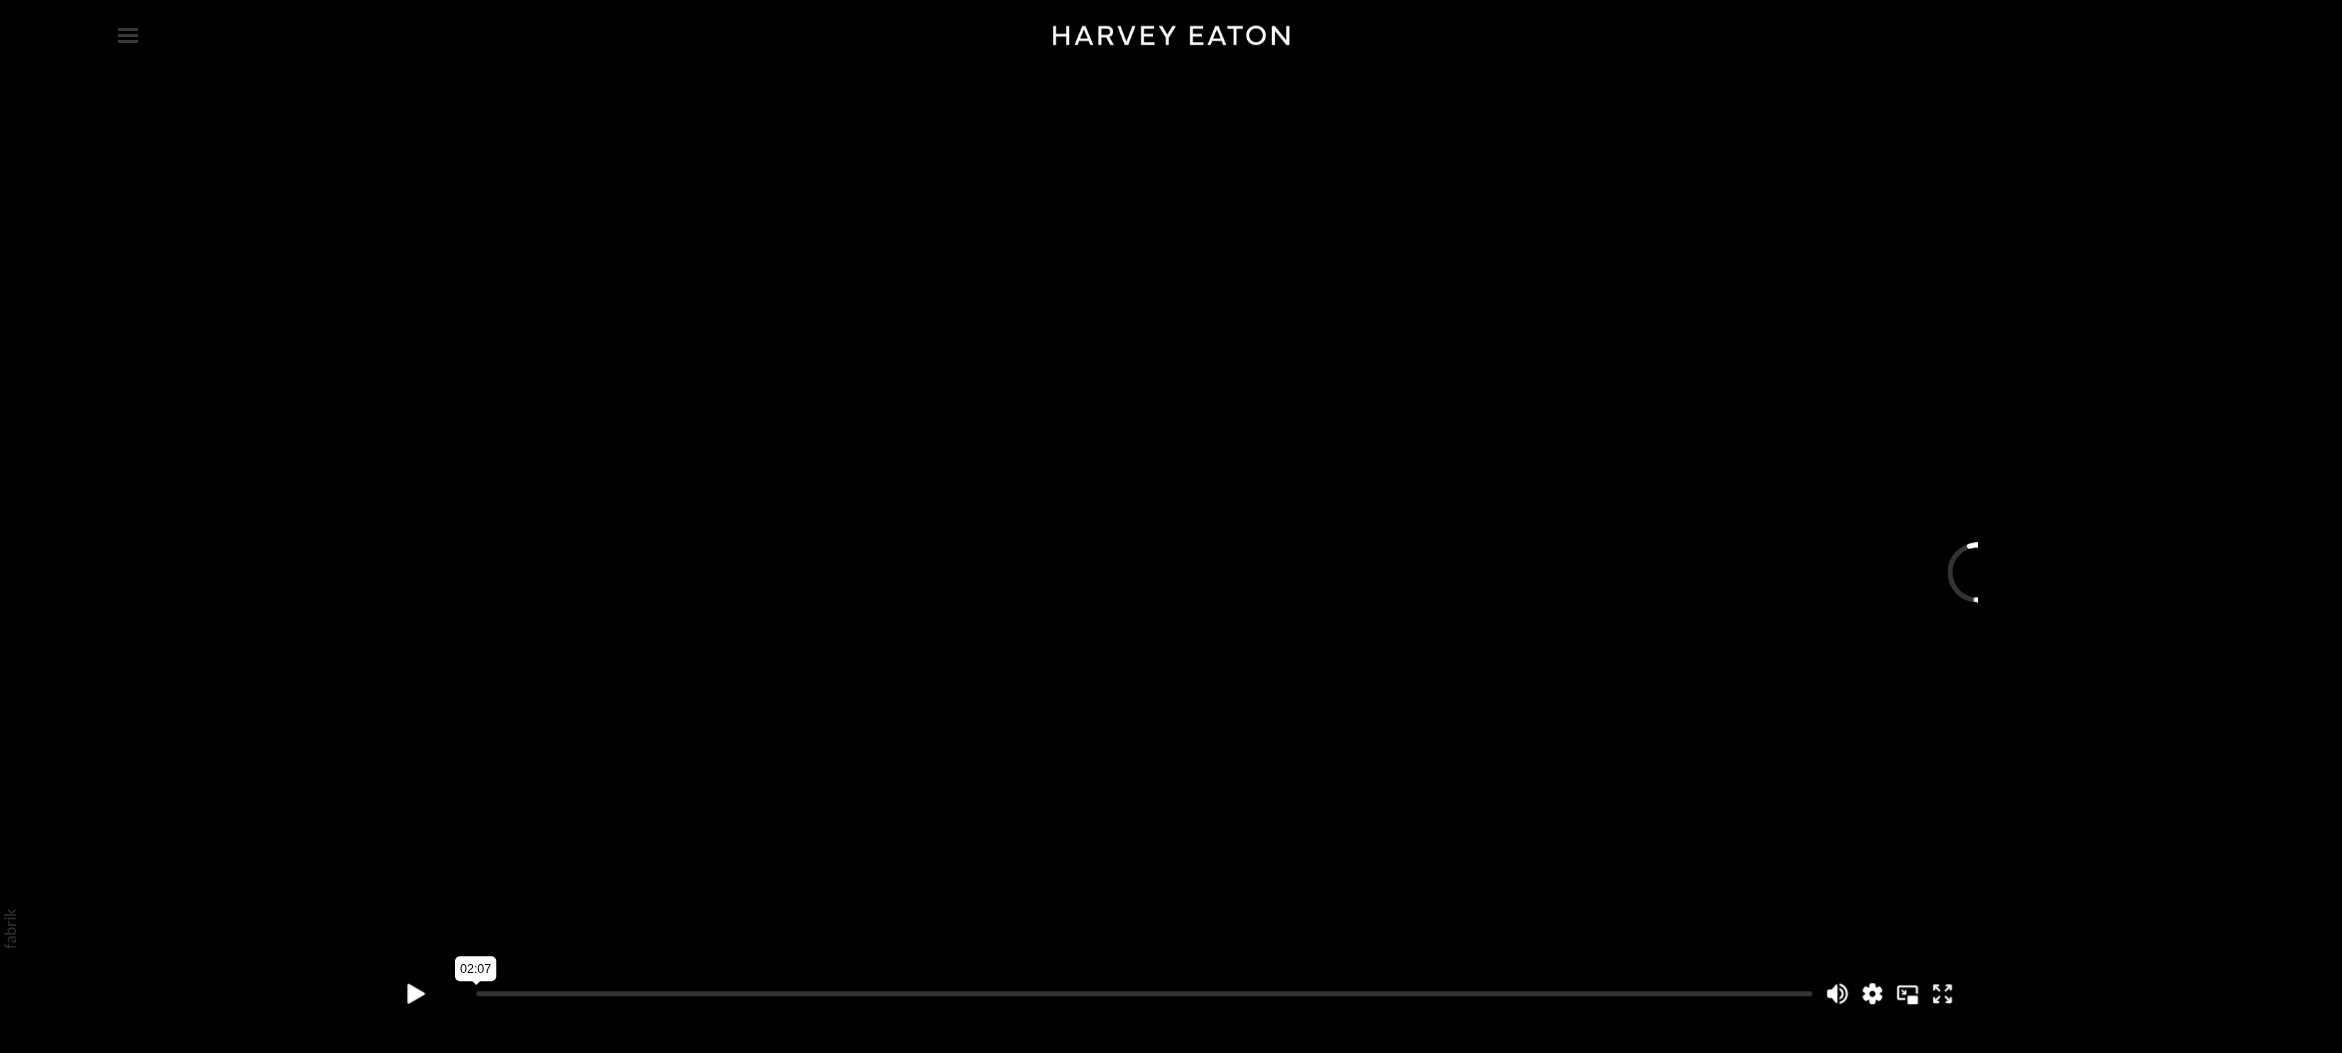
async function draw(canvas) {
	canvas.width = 2342;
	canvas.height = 1053;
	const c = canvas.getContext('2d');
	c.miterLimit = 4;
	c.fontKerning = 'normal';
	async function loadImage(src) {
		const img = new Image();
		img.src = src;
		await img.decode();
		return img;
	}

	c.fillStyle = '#000';
	c.fillRect(0, 0, 2342, 1053);
	for (const [x, y, w, h, color] of [
		[118, 34, 20, 3, '#373737'],
		[118, 28, 20, 3, '#373737'],
		[118, 40, 20, 3, '#373737'],
	]) {
		c.fillStyle = color;
		c.fillRect(x, y, w, h);
	}
	c.drawImage(await loadImage('img1.png'), 1053, 25, 237, 21);
	c.drawImage(await loadImage('img2.png'), 4, 909, 12, 40);
	c.drawImage(await loadImage('img3.png'), 407, 542, 1571, 463);
}

draw(document.querySelector('canvas'));
